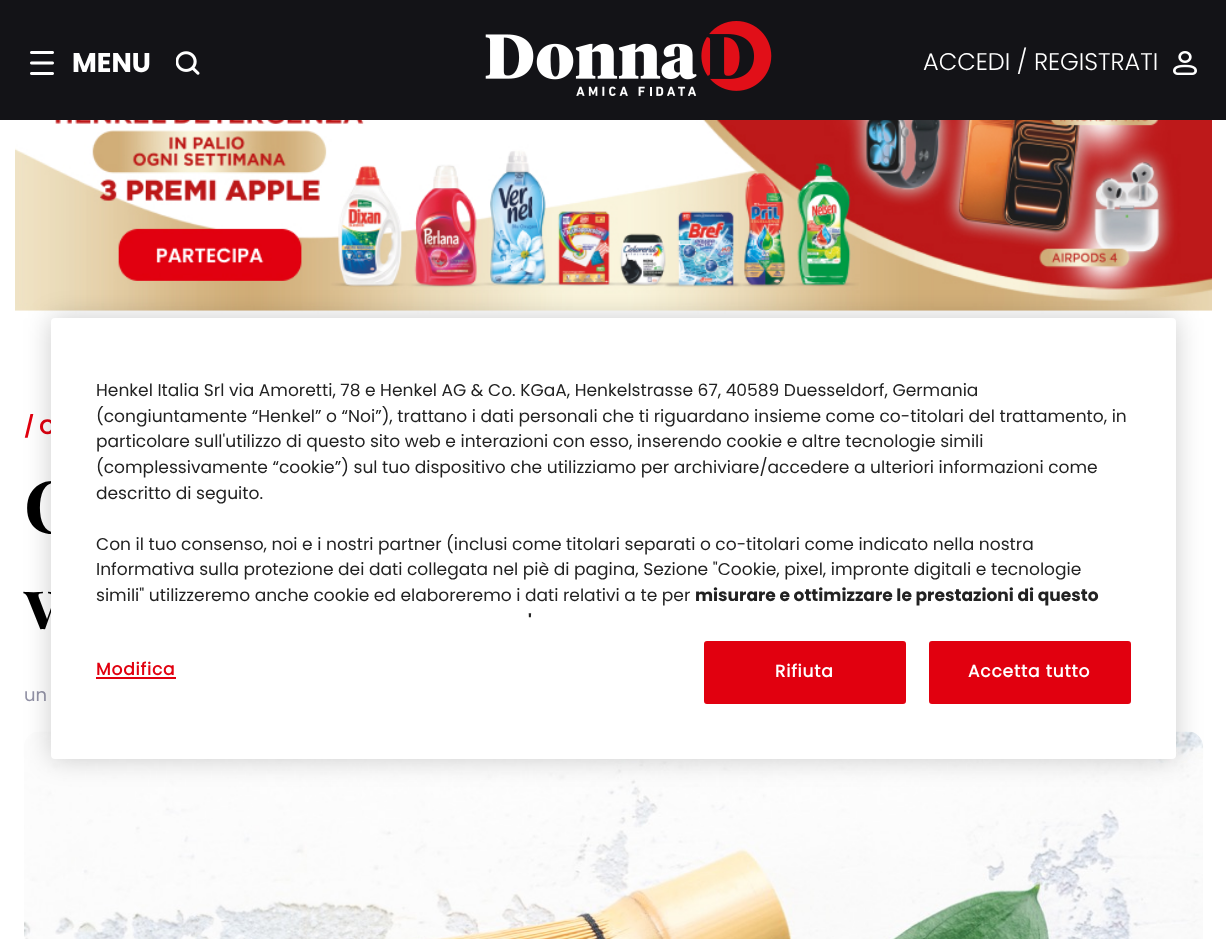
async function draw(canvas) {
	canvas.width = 1226;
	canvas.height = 939;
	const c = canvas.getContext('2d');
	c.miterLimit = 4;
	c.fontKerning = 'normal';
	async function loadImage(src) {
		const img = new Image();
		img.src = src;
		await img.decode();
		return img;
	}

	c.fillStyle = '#fff';
	c.fillRect(0, 0, 1226, 939);
	c.fillStyle = '#131317';
	c.fillRect(0, 0, 1226, 120);
	c.drawImage(await loadImage('img1.png'), 30, 51, 24, 24);
	c.font = 'bold 27px Poppins';
	c.fillStyle = '#fff';
	c.fillText('MENU', 72, 72);
	c.drawImage(await loadImage('img2.png'), 176, 51, 24, 24);
	c.drawImage(await loadImage('img3.png'), 485, 21, 287, 75);
	c.font = '300 24px Poppins';
	c.fillText('ACCEDI / REGISTRATI', 923, 70);
	c.drawImage(await loadImage('img4.png'), 1173, 51, 24, 24);
	c.drawImage(await loadImage('img5.png'), 15, 120, 1197, 219);
	c.font = '600 21px Poppins';
	c.fillStyle = '#e1000f';
	c.fillText('/ C', 24, 434);
	c.font = 'bold 72px Playfair Display';
	c.fillStyle = '#000';
	c.fillText('C', 24, 533);
	c.fillText('v', 24, 629);
	c.font = '18px Poppins';
	c.fillStyle = '#9292a6';
	c.fillText('un', 24, 701);
	c.drawImage(await loadImage('img6.png'), 24, 731, 1179, 208);
	c.fillStyle = '#00000033';
	c.filter = 'blur(13.5px)';
	c.beginPath();
	c.roundRect(51, 318, 1125, 441, 4);
	c.fill();
	c.filter = 'none';
	c.fillStyle = '#fff';
	c.beginPath();
	c.roundRect(51, 318, 1125, 441, 4);
	c.fill();
	c.font = '17.07px Poppins';
	c.fillStyle = '#222';
	for (const [text, x, y] of [
		['Henkel Italia Srl via Amoretti, 78 e Henkel AG & Co. KGaA, Henkelstrasse 67, 40589 Duesseldorf, Germania', 96, 396],
		['(congiuntamente “Henkel” o “Noi”), trattano i dati personali che ti riguardano insieme come co-titolari del trattamento, in', 96, 422],
		['particolare sull\'utilizzo di questo sito web e interazioni con esso, inserendo cookie e altre tecnologie simili', 96, 447],
		['(complessivamente “cookie”) sul tuo dispositivo che utilizziamo per archiviare/accedere a ulteriori informazioni come', 96, 473],
		['descritto di seguito.', 96, 499],
		['Con il tuo consenso, noi e i nostri partner (inclusi come titolari separati o co-titolari come indicato nella nostra', 96, 550],
		['Informativa sulla protezione dei dati collegata nel piè di pagina, Sezione "Cookie, pixel, impronte digitali e tecnologie', 96, 575],
		['simili" utilizzeremo anche cookie ed elaboreremo i dati relativi a te per', 96, 601],
	]) {
		c.fillText(text, x, y);
	}
	c.font = 'bold 17.07px Poppins';
	c.fillText('misurare e ottimizzare le prestazioni di questo', 695, 601);
	c.fillText('\'', 528, 627);
	c.letterSpacing = '0.8px';
	c.font = 'bold 17.07px "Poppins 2"';
	c.fillStyle = '#e1000f';
	c.fillText('Modifica', 96, 675);
	c.fillRect(96, 677, 80, 2);
	c.beginPath();
	c.roundRect(705, 642, 200, 61, 2);
	c.fill();
	c.strokeStyle = '#e1000f';
	c.lineWidth = 2;
	c.stroke();
	c.fillStyle = '#fff';
	c.fillText('Rifiuta', 775, 677);
	c.fillStyle = '#e1000f';
	c.beginPath();
	c.roundRect(930, 642, 200, 61, 2);
	c.fill();
	c.stroke();
	c.fillStyle = '#fff';
	c.fillText('Accetta tutto', 968, 677);
}

draw(document.querySelector('canvas'));
